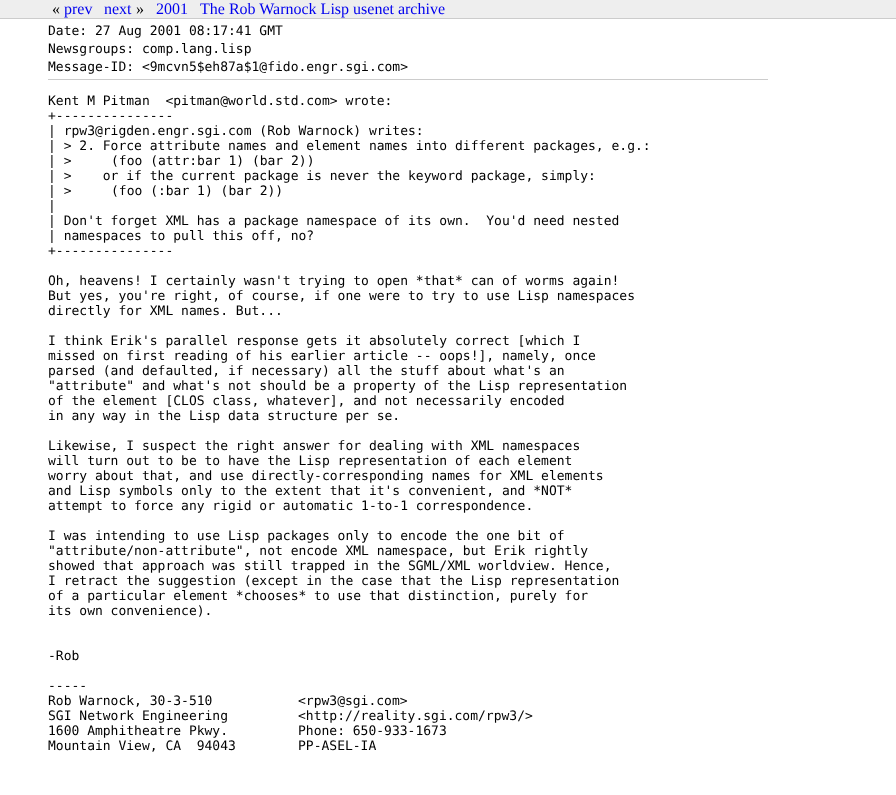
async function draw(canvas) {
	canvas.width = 896;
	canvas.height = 795;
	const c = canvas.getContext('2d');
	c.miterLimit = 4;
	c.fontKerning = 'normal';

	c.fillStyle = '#fff';
	c.fillRect(0, 0, 896, 795);
	c.fillStyle = '#eee';
	c.fillRect(0, 0, 896, 18);
	c.fillStyle = '#ccc';
	c.fillRect(0, 18, 896, 1);
	c.font = '16px Liberation Serif';
	c.fillStyle = '#000';
	c.fillText('«', 52, 14);
	c.fillStyle = '#00e';
	c.fillText('prev', 64, 14);
	c.fillText('next', 104, 14);
	c.fillStyle = '#000';
	c.fillText('»', 136, 14);
	c.fillStyle = '#00e';
	c.fillText('2001', 156, 14);
	c.fillText('The Rob Warnock Lisp usenet archive', 200, 14);
	c.fillStyle = '#ccc';
	c.fillRect(48, 79, 720, 1);
	c.font = '13px DejaVu Sans Mono';
	c.fillStyle = '#000';
	for (const [text, x, y] of [
		['Date: 27 Aug 2001 08:17:41 GMT', 48, 35],
		['Newsgroups: comp.lang.lisp', 48, 53],
		['Message-ID: <9mcvn5$eh87a$1@fido.engr.sgi.com>', 48, 71],
		['Kent M Pitman  <pitman@world.std.com> wrote:', 48, 105],
		['+---------------', 48, 120],
		['| rpw3@rigden.engr.sgi.com (Rob Warnock) writes:', 48, 135],
		['| > 2. Force attribute names and element names into different packages, e.g.:', 48, 150],
		['| >', 48, 165],
		['(foo (attr:bar 1) (bar 2))', 111, 165],
		['| >    or if the current package is never the keyword package, simply:', 48, 180],
		['| >', 48, 195],
		['(foo (:bar 1) (bar 2))', 111, 195],
		['|', 48, 210],
		['| Don\'t forget XML has a package namespace of its own.  You\'d need nested', 48, 225],
		['| namespaces to pull this off, no?', 48, 240],
		['+---------------', 48, 255],
		['Oh, heavens! I certainly wasn\'t trying to open *that* can of worms again!', 48, 285],
		['But yes, you\'re right, of course, if one were to try to use Lisp namespaces', 48, 300],
		['directly for XML names. But...', 48, 315],
		['I think Erik\'s parallel response gets it absolutely correct [which I', 48, 345],
		['missed on first reading of his earlier article -- oops!], namely, once', 48, 360],
		['parsed (and defaulted, if necessary) all the stuff about what\'s an', 48, 375],
		['"attribute" and what\'s not should be a property of the Lisp representation', 48, 390],
		['of the element [CLOS class, whatever], and not necessarily encoded', 48, 405],
		['in any way in the Lisp data structure per se.', 48, 420],
		['Likewise, I suspect the right answer for dealing with XML namespaces', 48, 450],
		['will turn out to be to have the Lisp representation of each element', 48, 465],
		['worry about that, and use directly-corresponding names for XML elements', 48, 480],
		['and Lisp symbols only to the extent that it\'s convenient, and *NOT*', 48, 495],
		['attempt to force any rigid or automatic 1-to-1 correspondence.', 48, 510],
		['I was intending to use Lisp packages only to encode the one bit of', 48, 540],
		['"attribute/non-attribute", not encode XML namespace, but Erik rightly', 48, 555],
		['showed that approach was still trapped in the SGML/XML worldview. Hence,', 48, 570],
		['I retract the suggestion (except in the case that the Lisp representation', 48, 585],
		['of a particular element *chooses* to use that distinction, purely for', 48, 600],
		['its own convenience).', 48, 615],
		['-Rob', 48, 660],
		['-----', 48, 690],
		['Rob Warnock, 30-3-510', 48, 705],
		['<rpw3@sgi.com>', 298, 705],
		['SGI Network Engineering', 48, 720],
		['<http://reality.sgi.com/rpw3/>', 298, 720],
		['1600 Amphitheatre Pkwy.', 48, 735],
		['Phone: 650-933-1673', 298, 735],
		['Mountain View, CA  94043', 48, 750],
		['PP-ASEL-IA', 298, 750],
	]) {
		c.fillText(text, x, y);
	}
}

draw(document.querySelector('canvas'));
